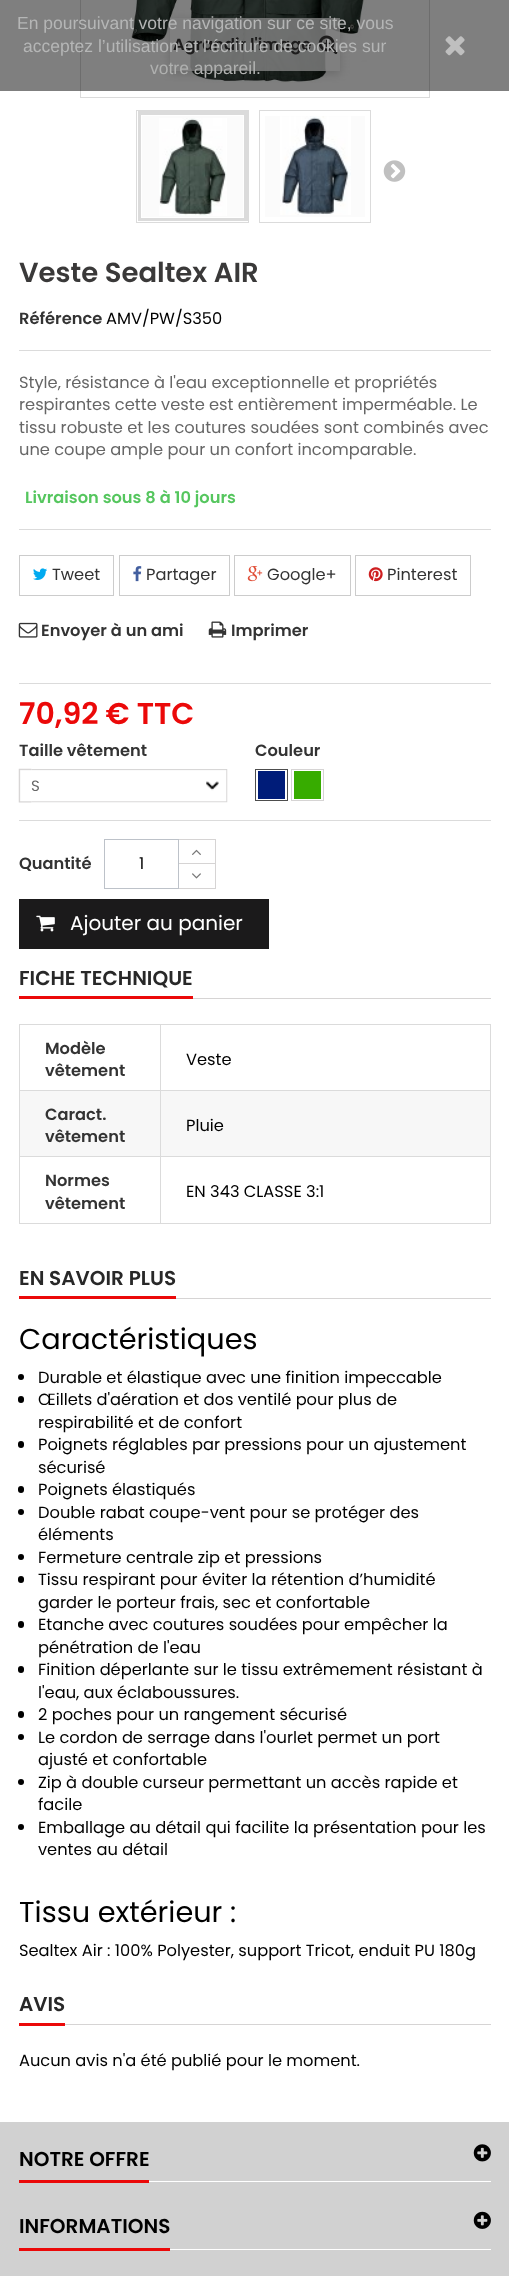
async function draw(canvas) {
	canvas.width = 509;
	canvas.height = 2276;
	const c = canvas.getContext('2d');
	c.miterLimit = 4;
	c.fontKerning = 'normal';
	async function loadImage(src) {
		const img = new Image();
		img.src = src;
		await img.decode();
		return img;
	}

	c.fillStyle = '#fff';
	c.fillRect(0, 0, 509, 2276);
	c.fillStyle = '#d1d1d1';
	c.fillRect(0, 2122, 509, 154);
	c.strokeStyle = '#dbdbdb';
	c.strokeRect(80.5, -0.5, 349, 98);
	c.drawImage(await loadImage('img4.png'), 131, 0, 236, 83);
	c.save();
	c.beginPath();
	c.moveTo(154, 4);
	c.lineTo(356, 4);
	c.lineTo(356, 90);
	c.lineTo(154, 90);
	c.closePath();
	c.moveTo(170, 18);
	c.lineTo(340, 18);
	c.lineTo(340, 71);
	c.lineTo(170, 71);
	c.closePath();
	c.clip('evenodd');
	c.fillStyle = '#00000029';
	c.filter = 'blur(5px)';
	c.beginPath();
	c.rect(170, 20, 170, 54);
	c.fill();
	c.filter = 'none';
	c.restore();
	c.fillStyle = '#ffffffd1';
	c.fillRect(170, 18, 170, 53);
	c.font = '600 16.25px Poppins';
	c.fillStyle = '#3a3939';
	c.fillText('Agrandir l\'image', 173, 50);
	c.drawImage(await loadImage('img5.png'), 318, 35, 20, 20);
	c.fillStyle = '#00000080';
	c.fillRect(0, 0, 509, 91);
	c.font = '17.5px Liberation Sans';
	c.fillStyle = '#b5b6b6';
	c.fillText('En poursuivant votre navigation sur ce site, vous', 17, 29);
	c.fillText('acceptez l’utilisation et l\'écriture de cookies sur', 23, 52);
	c.fillStyle = '#afb0af';
	c.fillText('votre appareil.', 150, 74);
	c.drawImage(await loadImage('img1.png'), 445, 36, 20, 20);
	c.fillStyle = '#fff';
	c.fillRect(149, 2181, 342, 1);
	c.fillStyle = '#eb0909';
	c.fillRect(19, 2180, 130, 3);
	c.font = '600 20px Poppins';
	c.fillStyle = '#000';
	c.fillText('NOTRE OFFRE', 19, 2166);
	c.drawImage(await loadImage('img2.png'), 473, 2144, 18, 18);
	c.fillStyle = '#fff';
	c.fillRect(170, 2249, 321, 1);
	c.fillStyle = '#eb0909';
	c.fillRect(19, 2248, 151, 3);
	c.fillStyle = '#000';
	c.fillText('INFORMATIONS', 19, 2233);
	c.drawImage(await loadImage('img3.png'), 473, 2211, 18, 18);
	c.strokeRect(136.5, 110.5, 112, 112);
	c.fillStyle = '#fbfbfb';
	c.fillRect(142, 116, 101, 101);
	c.lineWidth = 4;
	c.strokeRect(140, 113, 106, 106);
	c.strokeStyle = '#fff';
	c.lineWidth = 1;
	c.strokeRect(141.5, 115.5, 102, 102);
	c.drawImage(await loadImage('img6.png'), 159, 118, 68, 98);
	c.strokeStyle = '#dbdbdb';
	c.strokeRect(259.5, 110.5, 111, 112);
	c.fillRect(265, 116, 100, 101);
	c.drawImage(await loadImage('img7.png'), 280, 116, 71, 99);
	c.drawImage(await loadImage('img8.png'), 383, 160, 23, 22);
	c.font = '600 27.5px Poppins';
	c.fillStyle = '#3a3939';
	c.fillText('Veste Sealtex AIR', 19, 282);
	c.font = '600 16.25px Poppins';
	c.fillStyle = '#333';
	c.fillText('Référence', 19, 324);
	c.font = '16.25px Poppins';
	c.fillStyle = '#000';
	c.fillText('AMV/PW/S350', 106, 324);
	c.fillStyle = '#dbdbdb';
	c.fillRect(19, 350, 472, 1);
	c.fillStyle = '#666';
	for (const [text, x, y] of [
		['Style, résistance à l\'eau exceptionnelle et propriétés', 19, 388],
		['respirantes cette veste est entièrement imperméable. Le', 19, 410],
		['tissu robuste et les coutures soudées sont combinés avec', 19, 433],
		['une coupe ample pour un confort incomparable.', 19, 455],
	]) {
		c.fillText(text, x, y);
	}
	c.font = '600 16.25px Poppins';
	c.fillStyle = '#55c65e';
	c.fillText('Livraison sous 8 à 10 jours', 25, 503);
	c.fillStyle = '#dbdbdb';
	c.fillRect(19, 529, 472, 1);
	c.strokeStyle = '#ccc';
	c.strokeRect(19.5, 555.5, 94, 40);
	c.drawImage(await loadImage('img9.png'), 33, 568, 14, 12);
	c.font = '16.25px Poppins';
	c.fillStyle = '#333';
	c.fillText('Tweet', 52, 580);
	c.strokeRect(119.5, 555.5, 110, 40);
	c.drawImage(await loadImage('img10.png'), 133, 566, 9, 16);
	c.fillText('Partager', 146, 580);
	c.strokeRect(234.5, 555.5, 116, 40);
	c.drawImage(await loadImage('img11.png'), 247, 566, 16, 16);
	c.fillText('Google+', 267, 580);
	c.strokeRect(355.5, 555.5, 115, 40);
	c.drawImage(await loadImage('img12.png'), 368, 567, 15, 15);
	c.fillText('Pinterest', 387, 580);
	c.drawImage(await loadImage('img13.png'), 18, 622, 20, 16);
	c.font = '600 16.25px Poppins';
	c.fillText('Envoyer à un ami', 41, 636);
	c.drawImage(await loadImage('img14.png'), 208, 621, 19, 17);
	c.fillText('Imprimer', 231, 636);
	c.fillStyle = '#dbdbdb';
	c.fillRect(19, 683, 472, 1);
	c.font = '600 30px Poppins';
	c.fillStyle = '#eb0909';
	c.fillText('70,92 € TTC', 19, 724);
	c.fillStyle = '#dbdbdb';
	c.fillRect(19, 820, 472, 1);
	c.font = '600 16.25px Poppins';
	c.fillStyle = '#333';
	c.fillText('Taille vêtement', 19, 756);
	c.drawImage(await loadImage('img15.png'), 18, 768, 14, 35);
	c.drawImage(await loadImage('img16.png'), 31, 769, 197, 34);
	c.font = '15px Poppins';
	c.fillStyle = '#666';
	c.fillText('S', 31, 791);
	c.font = '600 16.25px Poppins';
	c.fillStyle = '#333';
	c.fillText('Couleur', 255, 756);
	c.strokeStyle = '#4d4d4d';
	c.strokeRect(255.5, 769.5, 32, 31);
	c.fillStyle = '#001c79';
	c.fillRect(258, 771, 27, 28);
	c.strokeStyle = '#d6d4d4';
	c.strokeRect(291.5, 769.5, 32, 31);
	c.fillStyle = '#37ac00';
	c.fillRect(294, 771, 27, 28);
	c.fillStyle = '#333';
	c.fillText('Quantité', 19, 869);
	c.strokeStyle = '#bdc2c9';
	c.strokeRect(104.5, 839.5, 74, 49);
	c.font = '16.25px Poppins';
	c.fillStyle = '#000';
	c.fillText('1', 139, 869);
	for (const [x, y, w, h, color] of [
		[179, 839, 37, 1, '#d6d4d4'],
		[215, 839, 1, 50, '#d6d4d4'],
		[179, 888, 37, 1, '#d6d4d4'],
		[179, 863, 36, 1, '#d6d4d4'],
	]) {
		c.fillStyle = color;
		c.fillRect(x, y, w, h);
	}
	c.drawImage(await loadImage('img17.png'), 192, 849, 9, 6);
	c.drawImage(await loadImage('img18.png'), 192, 873, 9, 6);
	c.fillStyle = '#1b1a1b';
	c.fillRect(19, 899, 250, 50);
	c.drawImage(await loadImage('img19.png'), 36, 915, 19, 17);
	c.font = '20px Poppins';
	c.fillStyle = '#fff';
	c.fillText('Ajouter au panier', 70, 930);
	c.fillStyle = '#d6d4d4';
	c.fillRect(193, 998, 298, 1);
	c.fillStyle = '#eb0909';
	c.fillRect(19, 996, 174, 3);
	c.font = '600 20px Poppins';
	c.fillStyle = '#282828';
	c.fillText('FICHE TECHNIQUE', 19, 985);
	for (const [x, y, w, h, color] of [
		[490, 1024, 1, 200, '#dbdbdb'],
		[19, 1223, 472, 1, '#dbdbdb'],
		[19, 1024, 1, 200, '#dbdbdb'],
		[19, 1024, 472, 1, '#dbdbdb'],
	]) {
		c.fillStyle = color;
		c.fillRect(x, y, w, h);
	}
	c.font = '600 16.25px Poppins';
	c.fillStyle = '#333';
	c.fillText('Modèle', 45, 1054);
	c.fillText('vêtement', 45, 1076);
	c.font = '16.25px Poppins';
	c.fillStyle = '#000';
	c.fillText('Veste', 186, 1065);
	c.fillStyle = '#f7f7f7';
	c.fillRect(20, 1091, 470, 65);
	c.fillStyle = '#dbdbdb';
	c.fillRect(19, 1090, 472, 1);
	c.font = '600 16.25px Poppins';
	c.fillStyle = '#333';
	c.fillText('Caract.', 45, 1120);
	c.fillText('vêtement', 45, 1142);
	c.font = '16.25px Poppins';
	c.fillStyle = '#000';
	c.fillText('Pluie', 186, 1131);
	c.fillStyle = '#dbdbdb';
	c.fillRect(19, 1156, 472, 1);
	c.fillRect(160, 1024, 1, 200);
	c.font = '600 16.25px Poppins';
	c.fillStyle = '#333';
	c.fillText('Normes', 45, 1186);
	c.fillText('vêtement', 45, 1209);
	c.font = '16.25px Poppins';
	c.fillStyle = '#000';
	c.fillText('EN 343 CLASSE 3:1', 186, 1197);
	c.fillStyle = '#d6d4d4';
	c.fillRect(176, 1298, 315, 1);
	c.fillStyle = '#eb0909';
	c.fillRect(19, 1296, 157, 3);
	c.font = '600 20px Poppins';
	c.fillStyle = '#282828';
	c.fillText('EN SAVOIR PLUS', 19, 1285);
	c.font = '28.75px Poppins';
	c.fillStyle = '#000';
	c.fillText('Caractéristiques', 19, 1349);
	c.beginPath();
	c.arc(21, 1377, 3, 0, 2 * Math.PI);
	c.fill();
	c.font = '16.25px Poppins';
	c.fillText('Durable et élastique avec une finition impeccable', 38, 1383);
	c.beginPath();
	c.roundRect(18, 1396, 6, 7, 3);
	c.fill();
	c.fillText('Œillets d\'aération et dos ventilé pour plus de', 38, 1405);
	c.fillText('respirabilité et de confort', 38, 1428);
	c.beginPath();
	c.roundRect(18, 1441, 6, 7, 3);
	c.fill();
	c.fillText('Poignets réglables par pressions pour un ajustement', 38, 1450);
	c.fillText('sécurisé', 38, 1473);
	c.beginPath();
	c.roundRect(18, 1486, 6, 7, 3);
	c.fill();
	c.fillText('Poignets élastiqués', 38, 1495);
	c.beginPath();
	c.arc(21, 1512, 3, 0, 2 * Math.PI);
	c.fill();
	c.fillText('Double rabat coupe-vent pour se protéger des', 38, 1518);
	c.fillText('éléments', 38, 1540);
	c.beginPath();
	c.arc(21, 1557, 3, 0, 2 * Math.PI);
	c.fill();
	c.fillText('Fermeture centrale zip et pressions', 38, 1563);
	c.beginPath();
	c.roundRect(18, 1576, 6, 7, 3);
	c.fill();
	c.fillText('Tissu respirant pour éviter la rétention d’humidité', 38, 1585);
	c.fillText('garder le porteur frais, sec et confortable', 38, 1608);
	c.beginPath();
	c.roundRect(18, 1621, 6, 7, 3);
	c.fill();
	c.fillText('Etanche avec coutures soudées pour empêcher la', 38, 1630);
	c.fillText('pénétration de l\'eau', 38, 1653);
	c.beginPath();
	c.roundRect(18, 1666, 6, 7, 3);
	c.fill();
	c.fillText('Finition déperlante sur le tissu extrêmement résistant à', 38, 1675);
	c.fillText('l\'eau, aux éclaboussures.', 38, 1698);
	c.beginPath();
	c.roundRect(18, 1711, 6, 7, 3);
	c.fill();
	c.fillText('2 poches pour un rangement sécurisé', 38, 1720);
	c.beginPath();
	c.arc(21, 1737, 3, 0, 2 * Math.PI);
	c.fill();
	c.fillText('Le cordon de serrage dans l\'ourlet permet un port', 38, 1743);
	c.fillText('ajusté et confortable', 38, 1765);
	c.beginPath();
	c.arc(21, 1782, 3, 0, 2 * Math.PI);
	c.fill();
	c.fillText('Zip à double curseur permettant un accès rapide et', 38, 1788);
	c.fillText('facile', 38, 1810);
	c.beginPath();
	c.arc(21, 1827, 3, 0, 2 * Math.PI);
	c.fill();
	c.fillText('Emballage au détail qui facilite la présentation pour les', 38, 1833);
	c.fillText('ventes au détail', 38, 1855);
	c.font = '28.75px Poppins';
	c.fillText('Tissu extérieur :', 19, 1922);
	c.font = '16.25px Poppins';
	c.fillText('Sealtex Air : 100% Polyester, support Tricot, enduit PU 180g', 19, 1956);
	c.fillStyle = '#d6d4d4';
	c.fillRect(65, 2024, 426, 1);
	c.fillStyle = '#eb0909';
	c.fillRect(19, 2023, 46, 3);
	c.font = '600 20px Poppins';
	c.fillStyle = '#282828';
	c.fillText('AVIS', 19, 2011);
	c.font = '16.25px Poppins';
	c.fillStyle = '#000';
	c.fillText('Aucun avis n\'a été publié pour le moment.', 19, 2066);
}

draw(document.querySelector('canvas'));
